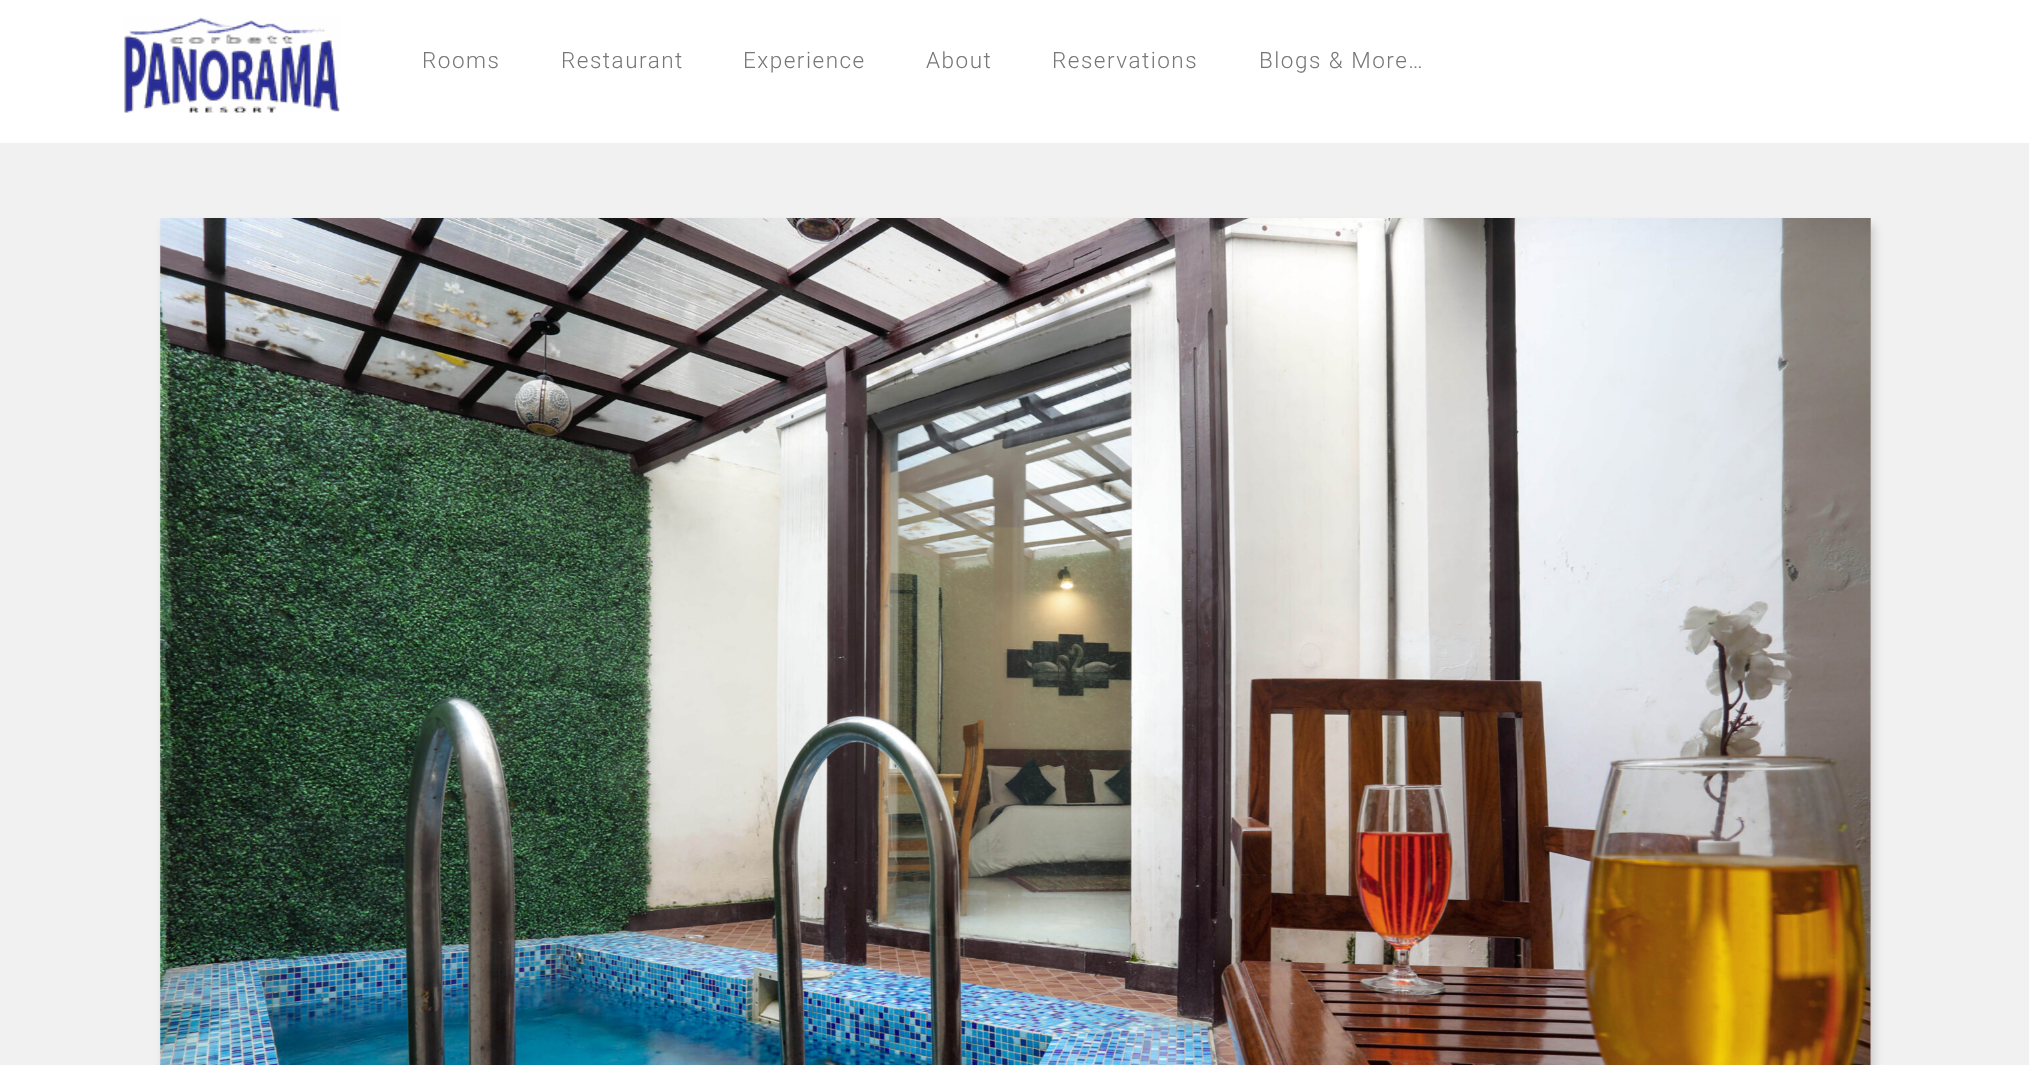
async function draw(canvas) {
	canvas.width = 2029;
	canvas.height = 1065;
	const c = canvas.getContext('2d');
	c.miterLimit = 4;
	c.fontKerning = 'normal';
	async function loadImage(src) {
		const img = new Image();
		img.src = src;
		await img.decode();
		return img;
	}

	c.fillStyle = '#fff';
	c.fillRect(0, 0, 2029, 1065);
	c.drawImage(await loadImage('img1.png'), 124, 17, 216, 96);
	c.letterSpacing = '1.5px';
	c.font = '300 22.5px Roboto';
	c.fillStyle = '#777';
	for (const [text, x, y] of [
		['Rooms', 422, 68],
		['Restaurant', 561, 68],
		['Experience', 743, 68],
		['About', 926, 68],
		['Reservations', 1052, 68],
		['Blogs & More…', 1259, 68],
	]) {
		c.fillText(text, x, y);
	}
	c.fillStyle = '#f1f1f1';
	c.fillRect(0, 143, 2029, 922);
	c.fillStyle = '#00000029';
	c.filter = 'blur(5px)';
	c.beginPath();
	c.rect(164, 225, 1710, 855);
	c.fill();
	c.filter = 'none';
	c.drawImage(await loadImage('img2.png'), 160, 218, 1711, 847);
	c.drawImage(await loadImage('img3.png'), 1870, 218, 1, 847);
}

draw(document.querySelector('canvas'));
